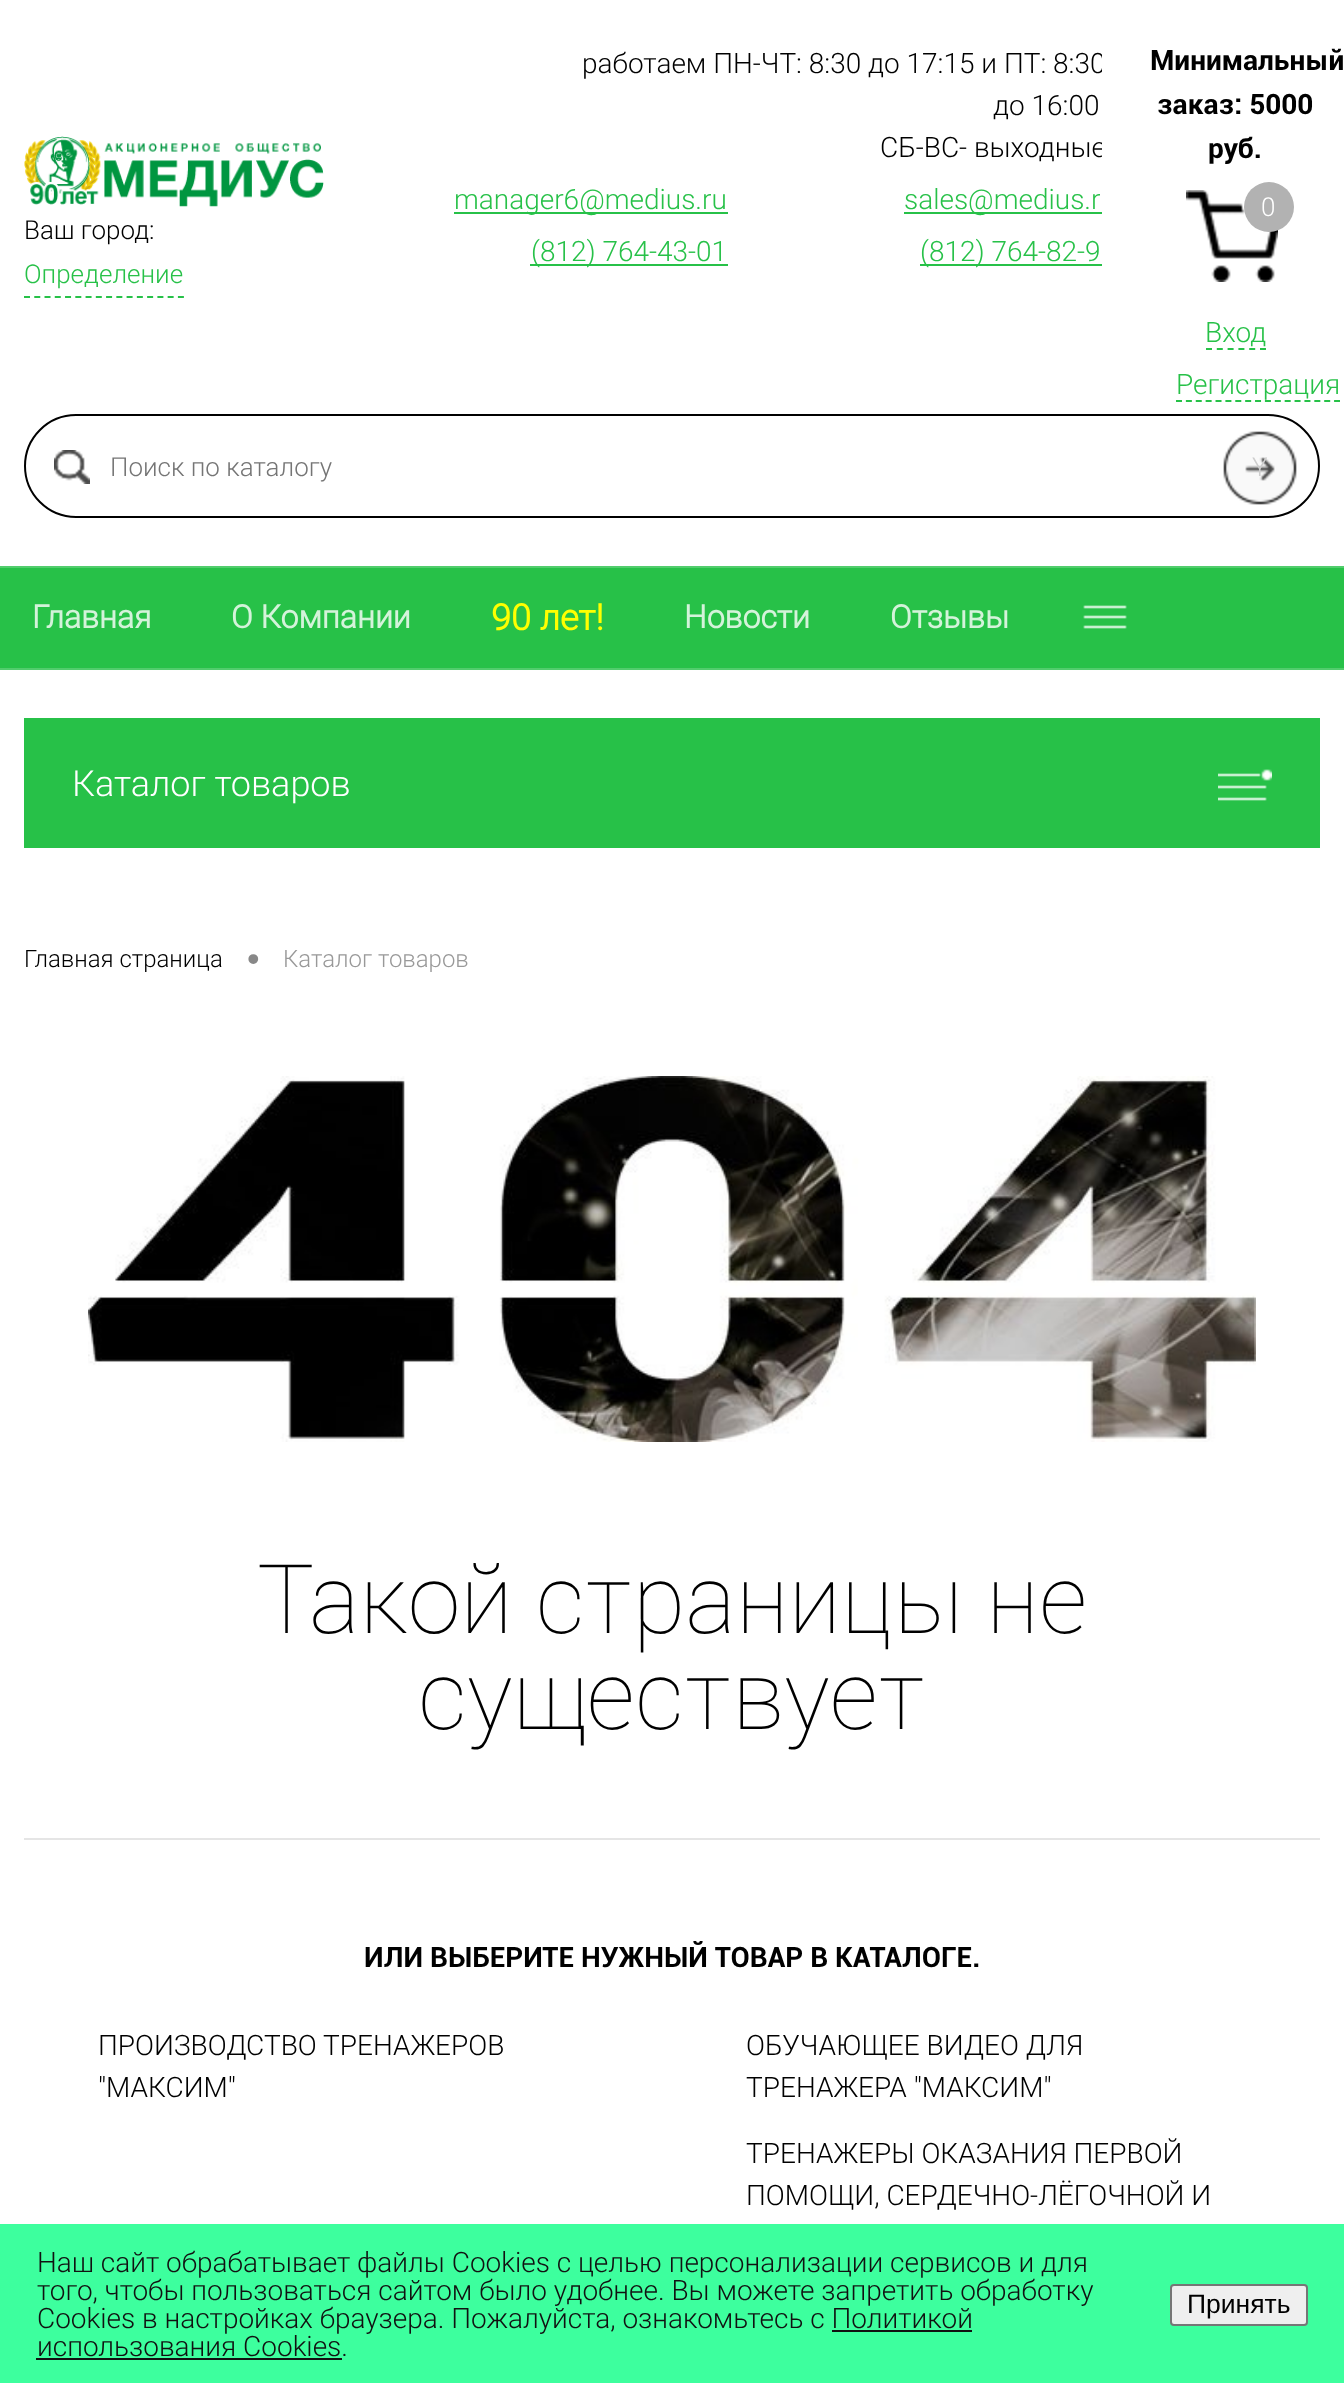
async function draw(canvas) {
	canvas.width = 1344;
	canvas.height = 2383;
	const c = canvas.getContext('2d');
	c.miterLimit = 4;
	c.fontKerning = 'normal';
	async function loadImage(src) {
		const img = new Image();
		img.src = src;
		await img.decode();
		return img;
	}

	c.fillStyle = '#fff';
	c.fillRect(0, 0, 1344, 2383);
	c.font = 'bold 28px "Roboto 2"';
	c.fillStyle = '#000';
	for (const [text, x, y] of [
		['Минимальный', 1150, 70],
		['заказ: 5000', 1157, 114],
		['руб.', 1208, 158],
	]) {
		c.fillText(text, x, y);
	}
	c.drawImage(await loadImage('img1.png'), 1186, 190, 92, 92);
	c.fillStyle = '#b2b2b2';
	c.beginPath();
	c.arc(1269, 207, 25, 0, 2 * Math.PI);
	c.fill();
	c.font = '300 26px Roboto';
	c.fillStyle = '#fff';
	c.fillText('0', 1261, 216);
	c.font = '300 28px Roboto';
	c.fillStyle = '#27c148';
	c.fillText('Вход', 1205, 342);
	c.beginPath();
	c.moveTo(1206, 349);
	c.lineTo(1266, 349);
	c.strokeStyle = '#27c148';
	c.lineWidth = 2;
	c.setLineDash([6, 4.8]);
	c.stroke();
	c.fillText('Регистрация', 1176, 394);
	c.beginPath();
	c.moveTo(1176, 401);
	c.lineTo(1340, 401);
	c.setLineDash([6, 3.88]);
	c.stroke();
	c.drawImage(await loadImage('img2.png'), 24, 136, 300, 71);
	c.font = '300 26px Roboto';
	c.fillStyle = '#000';
	c.fillText('Ваш город:', 24, 239);
	c.fillStyle = '#27c148';
	c.fillText('Определение', 24, 283);
	c.beginPath();
	c.moveTo(24, 297);
	c.lineTo(184, 297);
	c.setLineDash([6, 4.26]);
	c.stroke();
	c.save();
	c.beginPath();
	c.rect(324, 44, 778, 328);
	c.clip();
	c.font = '300 28px Roboto';
	c.fillStyle = '#000';
	c.fillText('работаем ПН-ЧТ: 8:30 до 17:15 и ПТ: 8:30', 582, 73);
	c.restore();
	c.font = '300 28px Roboto';
	c.fillStyle = '#000';
	c.fillText('до 16:00', 993, 115);
	c.save();
	c.beginPath();
	c.rect(324, 44, 778, 328);
	c.clip();
	c.fillText('СБ-ВС- выходные', 880, 157);
	c.restore();
	c.fillStyle = '#27c148';
	c.fillRect(454, 212, 274, 2);
	c.fillText('manager6@medius.ru', 454, 209);
	c.fillRect(530, 264, 198, 2);
	c.fillText('(812) 764-43-01', 531, 261);
	c.fillRect(904, 212, 198, 2);
	c.fillText('sales@medius.r', 904, 209);
	c.fillRect(920, 264, 182, 2);
	c.fillText('(812) 764-82-9', 920, 261);
	c.beginPath();
	c.roundRect(25, 415, 1294, 102, 51);
	c.strokeStyle = '#000';
	c.setLineDash([]);
	c.stroke();
	c.drawImage(await loadImage('img3.png'), 54, 450, 36, 34);
	c.font = '300 26px Roboto';
	c.fillStyle = '#757575';
	c.fillText('Поиск по каталогу', 110, 476);
	c.drawImage(await loadImage('img4.png'), 1223, 431, 74, 74);
	c.fillStyle = '#cecece';
	c.fillText('Y', 1252, 476);
	for (const [x, y, w, h, color] of [
		[0, 568, 1344, 100, '#27c148'],
		[0, 566, 1344, 2, '#52cd6d'],
		[0, 668, 1344, 2, '#52cd6d'],
	]) {
		c.fillStyle = color;
		c.fillRect(x, y, w, h);
	}
	c.font = 'bold 32px Roboto';
	c.fillStyle = '#d4f3da';
	c.fillText('Главная', 32, 628);
	c.fillText('О Компании', 231, 628);
	c.font = 'bold 36px Roboto';
	c.fillStyle = '#ff0';
	c.fillText('90 лет!', 491, 630);
	c.font = 'bold 32px Roboto';
	c.fillStyle = '#d4f3da';
	c.fillText('Новости', 684, 628);
	c.fillText('Отзывы', 890, 628);
	c.drawImage(await loadImage('img5.png'), 1083, 605, 44, 24);
	c.fillStyle = '#27c148';
	c.fillRect(24, 718, 1296, 130);
	c.font = '300 36px Roboto';
	c.fillStyle = '#fff';
	c.fillText('Каталог товаров', 72, 796);
	c.drawImage(await loadImage('img6.png'), 1218, 769, 54, 32);
	c.font = '300 24px Roboto';
	c.fillStyle = '#000';
	c.fillText('Главная страница', 24, 967);
	c.font = '36px Liberation Sans';
	c.fillStyle = '#888';
	c.fillText('•', 247, 971);
	c.font = '300 24px Roboto';
	c.fillStyle = '#999';
	c.fillText('Каталог товаров', 283, 967);
	c.drawImage(await loadImage('img7.png'), 88, 1076, 1168, 366);
	c.font = '100 96px Roboto';
	c.fillStyle = '#000';
	c.fillText('Такой страницы не', 257, 1633);
	c.fillText('существует', 418, 1729);
	c.fillStyle = '#e5e5e5';
	c.fillRect(24, 1838, 1296, 2);
	c.font = 'bold 28px "Roboto 2"';
	c.fillStyle = '#000';
	c.fillText('ИЛИ ВЫБЕРИТЕ НУЖНЫЙ ТОВАР В КАТАЛОГЕ.', 364, 1967);
	c.font = '300 28px Roboto';
	for (const [text, x, y] of [
		['ПРОИЗВОДСТВО ТРЕНАЖЕРОВ', 98, 2055],
		['"МАКСИМ"', 98, 2097],
		['ОБУЧАЮЩЕЕ ВИДЕО ДЛЯ', 746, 2055],
		['ТРЕНАЖЕРА "МАКСИМ"', 746, 2097],
		['ТРЕНАЖЕРЫ ОКАЗАНИЯ ПЕРВОЙ', 746, 2163],
		['ПОМОЩИ, СЕРДЕЧНО-ЛЁГОЧНОЙ И', 746, 2205],
	]) {
		c.fillText(text, x, y);
	}
	c.fillStyle = '#3dff9e';
	c.fillRect(0, 2224, 1344, 159);
	c.fillStyle = '#111';
	for (const [text, x, y] of [
		['Наш сайт обрабатывает файлы Cookies с целью персонализации сервисов и для', 37, 2272],
		['того, чтобы пользоваться сайтом было удобнее. Вы можете запретить обработку', 37, 2300],
		['Cookies в настройках браузера. Пожалуйста, ознакомьтесь с Политикой', 37, 2328],
		['использования Cookies.', 37, 2356],
	]) {
		c.fillText(text, x, y);
	}
	c.fillRect(832, 2330, 140, 2);
	c.fillRect(36, 2358, 306, 2);
	c.fillStyle = '#efefef';
	c.beginPath();
	c.roundRect(1171, 2285, 136, 40, 3);
	c.fill();
	c.strokeStyle = '#767676';
	c.stroke();
	c.font = '26.5px Liberation Sans';
	c.fillStyle = '#000';
	c.fillText('Принять', 1187, 2313);
}

draw(document.querySelector('canvas'));
